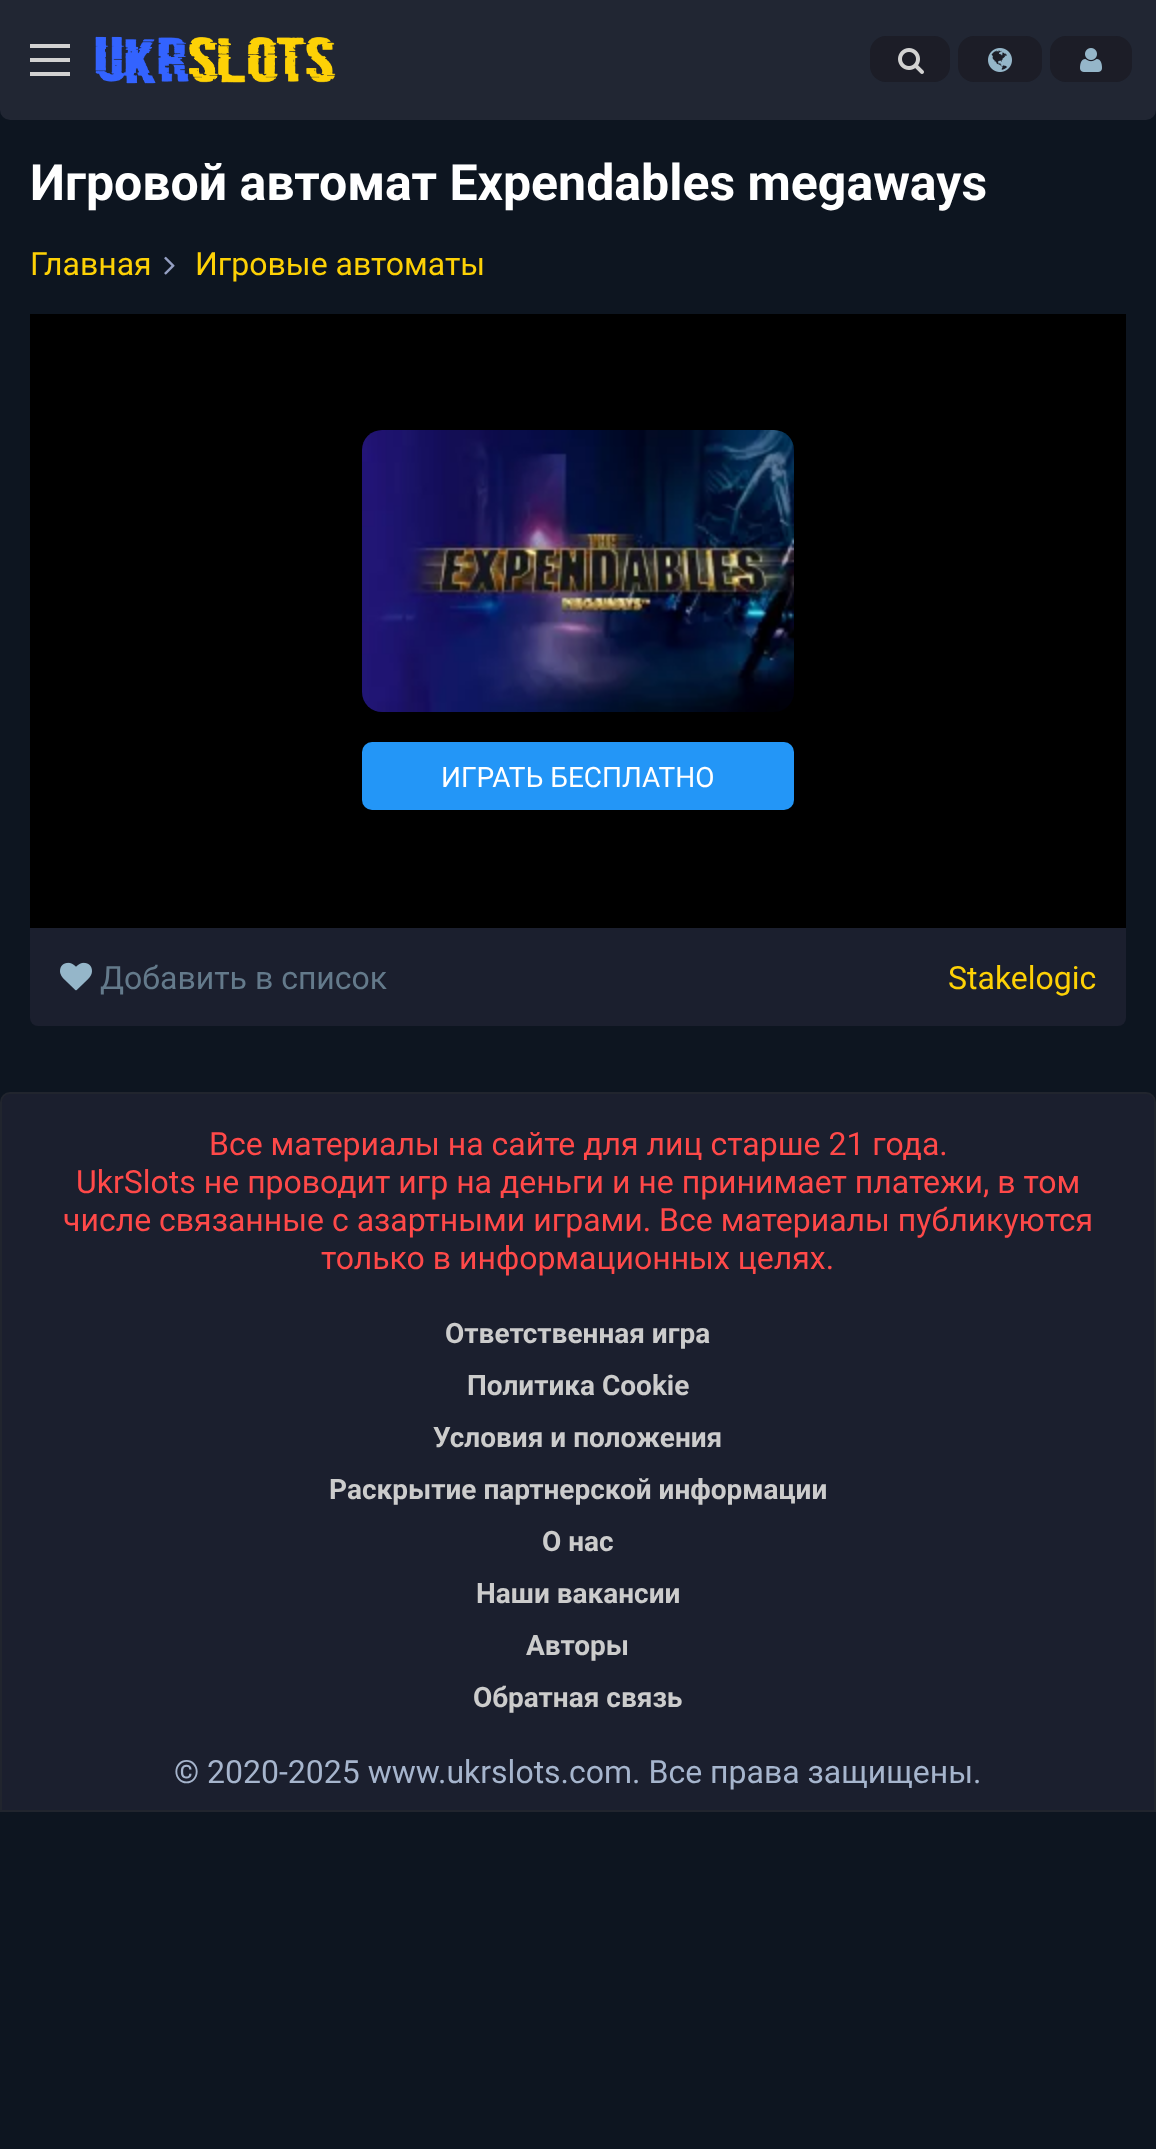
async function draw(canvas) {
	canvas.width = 1156;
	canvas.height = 2149;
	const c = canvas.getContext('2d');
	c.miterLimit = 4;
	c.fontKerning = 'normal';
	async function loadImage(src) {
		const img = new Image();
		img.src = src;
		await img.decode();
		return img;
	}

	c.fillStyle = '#0d1520';
	c.fillRect(0, 0, 1156, 2149);
	c.fillStyle = '#212633';
	c.beginPath();
	c.roundRect(0, 0, 1156, 120, [0, 0, 10, 10]);
	c.fill();
	for (const [x, y, w, h, color] of [
		[30, 44, 40, 4, '#d2d2d2'],
		[30, 58, 40, 4, '#d2d2d2'],
		[30, 72, 40, 4, '#d2d2d2'],
	]) {
		c.fillStyle = color;
		c.fillRect(x, y, w, h);
	}
	c.drawImage(await loadImage('img1.png'), 95, 36, 241, 48);
	c.fillStyle = '#1c1d27';
	c.beginPath();
	c.roundRect(870, 36, 80, 46, 16);
	c.fill();
	c.drawImage(await loadImage('img2.png'), 898, 48, 26, 26);
	c.beginPath();
	c.roundRect(958, 36, 84, 46, 16);
	c.fill();
	c.drawImage(await loadImage('img3.png'), 988, 48, 24, 24);
	c.beginPath();
	c.roundRect(1050, 36, 82, 46, 16);
	c.fill();
	c.drawImage(await loadImage('img4.png'), 1080, 48, 22, 24);
	c.font = 'bold 50px Roboto';
	c.fillStyle = '#fff';
	c.fillText('Игровой автомат Expendables megaways', 30, 200);
	c.font = '32px Roboto';
	c.fillStyle = '#fdd106';
	c.fillText('Главная', 30, 275);
	c.drawImage(await loadImage('img5.png'), 164, 256, 11, 19);
	c.fillText('Игровые автоматы', 195, 275);
	c.fillStyle = '#000';
	c.fillRect(30, 314, 1096, 614);
	c.drawImage(await loadImage('img6.png'), 362, 430, 432, 282);
	c.fillStyle = '#2396f7';
	c.beginPath();
	c.roundRect(362, 742, 432, 68, 10);
	c.fill();
	c.font = '28px Roboto';
	c.fillStyle = '#fff';
	c.fillText('ИГРАТЬ БЕСПЛАТНО', 441, 787);
	c.fillStyle = '#1b1f2e';
	c.beginPath();
	c.roundRect(30, 928, 1096, 98, [0, 0, 8, 8]);
	c.fill();
	c.drawImage(await loadImage('img7.png'), 60, 962, 32, 29);
	c.font = '32px Roboto';
	c.fillStyle = '#647a8b';
	c.fillText('Добавить в список', 100, 989);
	c.fillStyle = '#fdd106';
	c.fillText('Stakelogic', 948, 989);
	c.fillStyle = '#1b1f2e';
	c.beginPath();
	c.roundRect(1, 1093, 1154, 718, [9, 9, 0, 0]);
	c.fill();
	c.strokeStyle = '#21252e';
	c.lineWidth = 2;
	c.stroke();
	c.fillStyle = '#ff4949';
	for (const [text, x, y] of [
		['Все материалы на сайте для лиц старше 21 года.', 209, 1155],
		['UkrSlots не проводит игр на деньги и не принимает платежи, в том', 76, 1193],
		['числе связанные с азартными играми. Все материалы публикуются', 63, 1231],
		['только в информационных целях.', 321, 1269],
	]) {
		c.fillText(text, x, y);
	}
	c.font = 'bold 28px Roboto';
	c.fillStyle = '#ccc';
	for (const [text, x, y] of [
		['Ответственная игра', 445, 1343],
		['Политика Cookie', 467, 1395],
		['Условия и положения', 433, 1447],
		['Раскрытие партнерской информации', 329, 1499],
		['О нас', 542, 1551],
		['Наши вакансии', 476, 1603],
		['Авторы', 526, 1655],
		['Обратная связь', 473, 1707],
	]) {
		c.fillText(text, x, y);
	}
	c.font = '32px Roboto';
	c.fillStyle = '#a6b5cd';
	c.fillText('© 2020-2025 www.ukrslots.com. Все права защищены.', 174, 1783);
}

draw(document.querySelector('canvas'));
